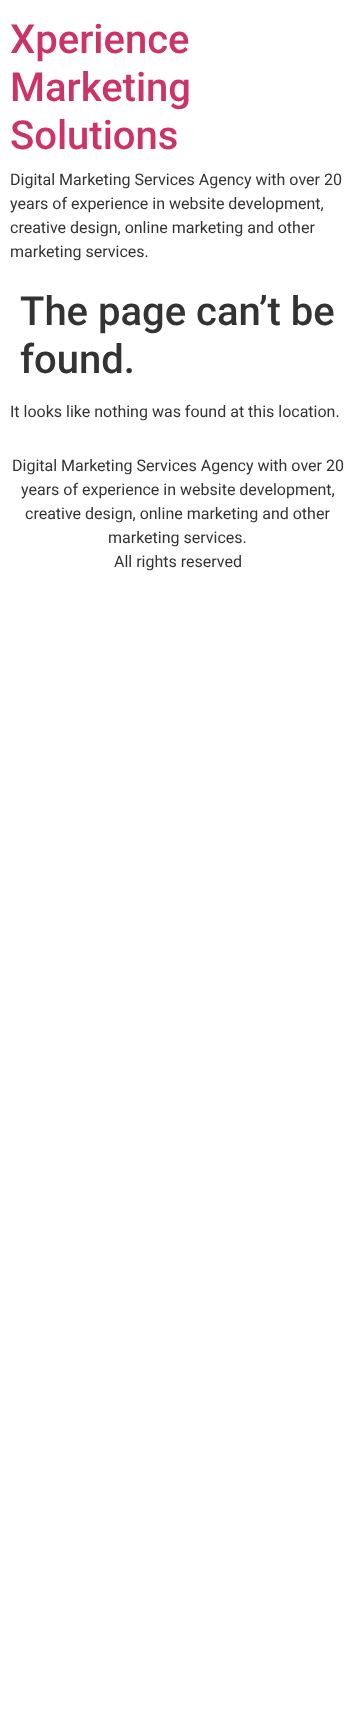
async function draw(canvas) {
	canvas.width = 355;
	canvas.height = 1732;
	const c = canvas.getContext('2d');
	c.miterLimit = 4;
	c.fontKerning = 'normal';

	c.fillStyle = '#fff';
	c.fillRect(0, 0, 355, 1732);
	c.font = '500 40px Roboto';
	c.fillStyle = '#c36';
	for (const [text, x, y] of [
		['Xperience', 10, 53],
		['Marketing', 10, 101],
		['Solutions', 10, 149],
	]) {
		c.fillText(text, x, y);
	}
	c.font = '16px Roboto';
	c.fillStyle = '#333';
	for (const [text, x, y] of [
		['Digital Marketing Services Agency with over 20', 10, 185],
		['years of experience in website development,', 10, 209],
		['creative design, online marketing and other', 10, 233],
		['marketing services.', 10, 257],
	]) {
		c.fillText(text, x, y);
	}
	c.font = '500 40px Roboto';
	c.fillText('The page can’t be', 20, 325);
	c.fillText('found.', 20, 373);
	c.font = '16px Roboto';
	for (const [text, x, y] of [
		['It looks like nothing was found at this location.', 10, 417],
		['Digital Marketing Services Agency with over 20', 12, 471],
		['years of experience in website development,', 21, 495],
		['creative design, online marketing and other', 25, 519],
		['marketing services.', 108, 543],
		['All rights reserved', 114, 567],
	]) {
		c.fillText(text, x, y);
	}
}

draw(document.querySelector('canvas'));
